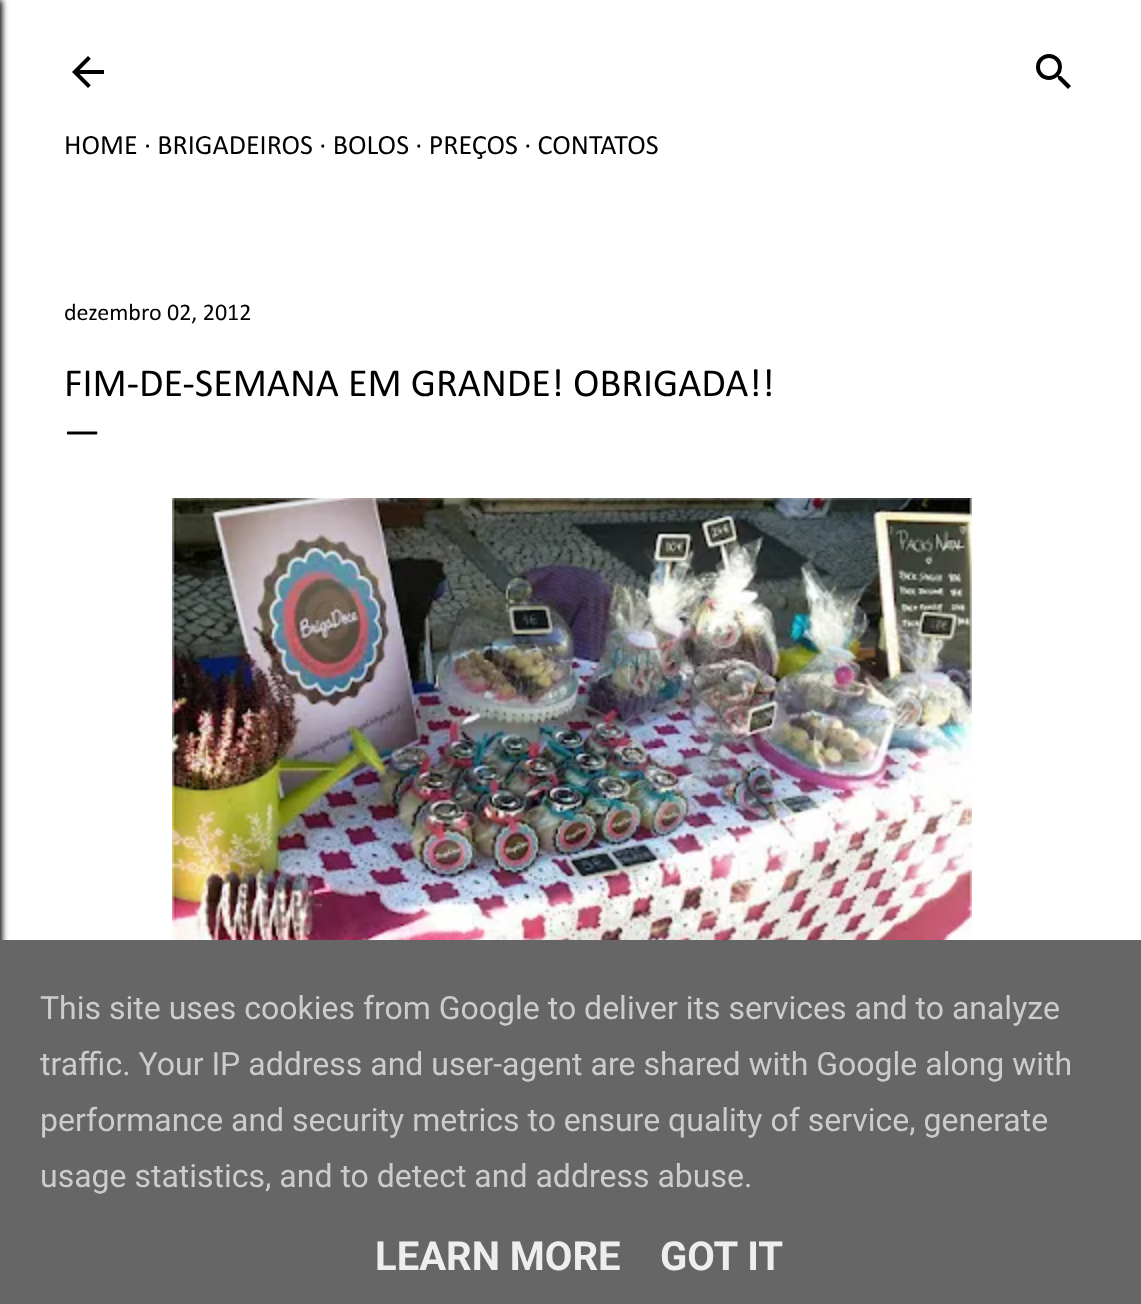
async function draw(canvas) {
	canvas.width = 1141;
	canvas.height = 1304;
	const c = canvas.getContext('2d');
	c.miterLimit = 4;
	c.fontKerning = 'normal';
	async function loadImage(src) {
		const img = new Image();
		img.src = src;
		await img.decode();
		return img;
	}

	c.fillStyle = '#fff';
	c.fillRect(0, 0, 1141, 1304);
	c.fillStyle = '#000';
	c.filter = 'blur(3px)';
	c.beginPath();
	c.rect(-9, 0, 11, 1304);
	c.fill();
	c.filter = 'none';
	c.drawImage(await loadImage('img1.png'), 72, 56, 32, 32);
	c.drawImage(await loadImage('img2.png'), 1036, 54, 35, 35);
	c.font = '28px Calibri';
	c.fillText('HOME · BRIGADEIROS · BOLOS · PREÇOS · CONTATOS', 64, 154);
	c.font = '24px Calibri';
	c.fillText('dezembro 02, 2012', 64, 320);
	c.font = '40px Calibri';
	c.fillText('FIM-DE-SEMANA EM GRANDE! OBRIGADA!!', 64, 396);
	c.fillText('—', 64, 444);
	c.drawImage(await loadImage('img3.png'), 172, 498, 800, 442);
	c.fillStyle = '#666';
	c.fillRect(0, 940, 1141, 364);
	c.font = '32px Roboto';
	c.fillStyle = '#ccc';
	for (const [text, x, y] of [
		['This site uses cookies from Google to deliver its services and to analyze', 40, 1019],
		['traffic. Your IP address and user-agent are shared with Google along with', 40, 1075],
		['performance and security metrics to ensure quality of service, generate', 40, 1131],
		['usage statistics, and to detect and address abuse.', 40, 1187],
	]) {
		c.fillText(text, x, y);
	}
	c.font = 'bold 40px Roboto';
	c.fillStyle = '#eee';
	c.fillText('LEARN MORE', 375, 1270);
	c.fillText('GOT IT', 660, 1270);
}

draw(document.querySelector('canvas'));
